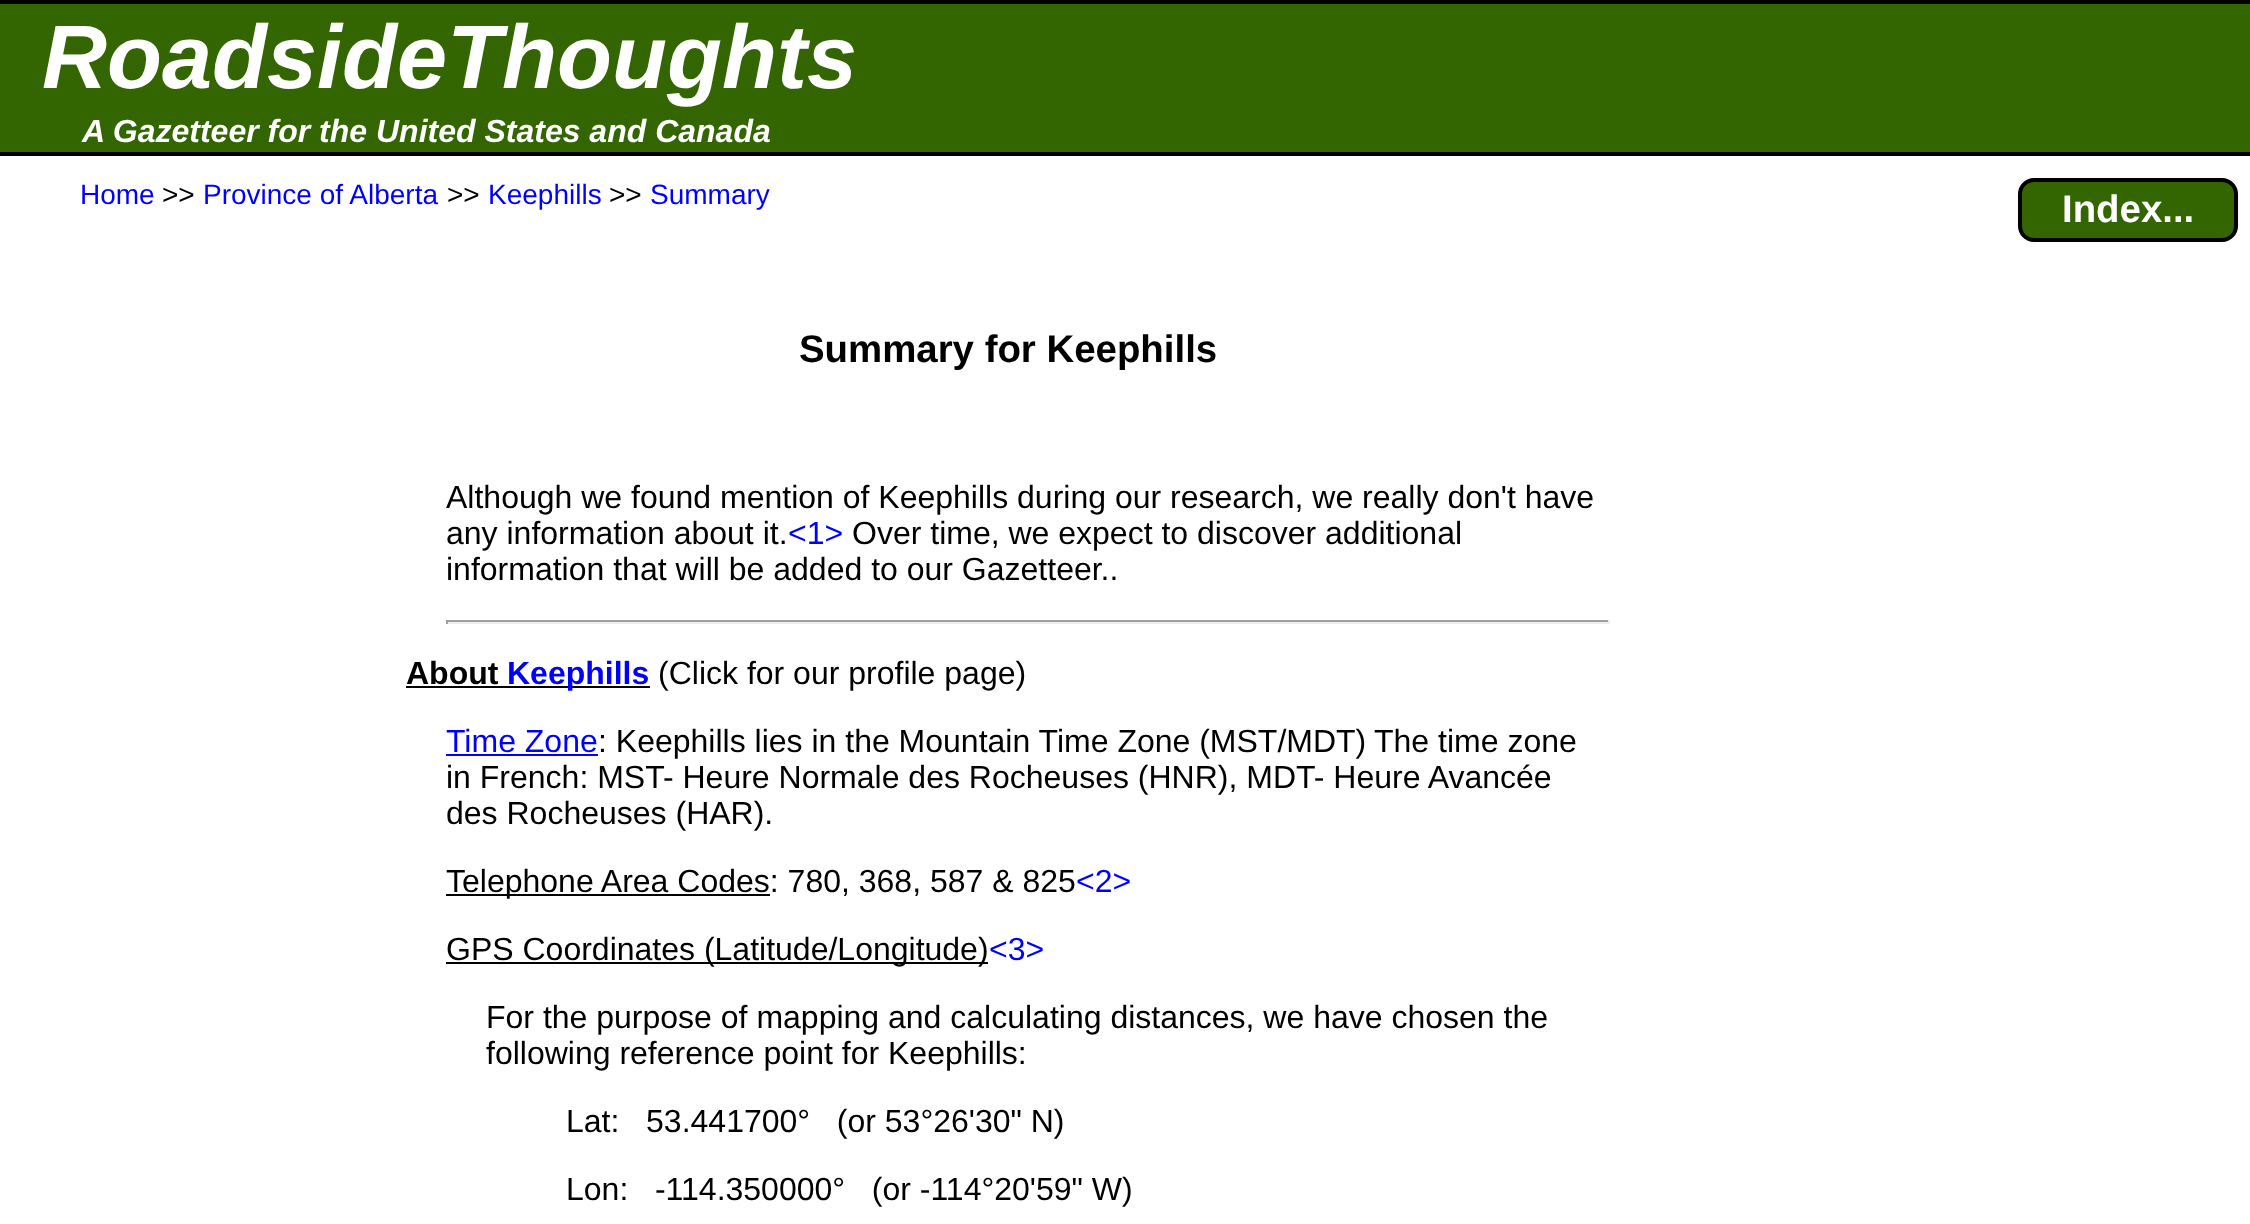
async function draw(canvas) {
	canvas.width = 2250;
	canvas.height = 1224;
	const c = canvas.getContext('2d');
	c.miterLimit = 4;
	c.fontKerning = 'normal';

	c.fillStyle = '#fff';
	c.fillRect(0, 0, 2250, 1224);
	for (const [x, y, w, h, color] of [
		[0, 4, 2250, 148, '#360'],
		[0, 0, 2250, 4, '#000'],
		[0, 152, 2250, 4, '#000'],
	]) {
		c.fillStyle = color;
		c.fillRect(x, y, w, h);
	}
	c.font = 'italic bold 90px Liberation Sans';
	c.fillStyle = '#fff';
	c.fillText('RoadsideThoughts', 42, 88);
	c.font = 'italic bold 32px Liberation Sans';
	c.fillText('A Gazetteer for the United States and Canada', 82, 142);
	c.font = '28px Liberation Sans';
	c.fillStyle = '#00f';
	c.fillText('Home', 80, 204);
	c.fillStyle = '#000';
	c.fillText('>>', 162, 204);
	c.fillStyle = '#00f';
	c.fillText('Province of Alberta', 203, 204);
	c.fillStyle = '#000';
	c.fillText('>>', 447, 204);
	c.fillStyle = '#00f';
	c.fillText('Keephills', 488, 204);
	c.fillStyle = '#000';
	c.fillText('>>', 609, 204);
	c.fillStyle = '#00f';
	c.fillText('Summary', 650, 204);
	c.fillStyle = '#360';
	c.beginPath();
	c.roundRect(2020, 180, 216, 60, 14);
	c.fill();
	c.strokeStyle = '#000';
	c.lineWidth = 4;
	c.stroke();
	c.font = 'bold 38.4px Liberation Sans';
	c.fillStyle = '#fff';
	c.fillText('Index...', 2062, 222);
	c.fillStyle = '#000';
	c.fillText('Summary for Keephills', 799, 362);
	c.font = '32px Liberation Sans';
	c.fillText('Although we found mention of Keephills during our research, we really don\'t have', 446, 508);
	c.fillText('any information about it.', 446, 544);
	c.fillStyle = '#00f';
	c.fillText('<1>', 788, 544);
	c.fillStyle = '#000';
	c.fillText('Over time, we expect to discover additional', 852, 544);
	c.fillText('information that will be added to our Gazetteer..', 446, 580);
	for (const [x, y, w, h, color] of [
		[446, 620, 1164, 2, '#9f9f9f'],
		[1608, 620, 2, 4, '#eee'],
		[446, 622, 1164, 2, '#eee'],
		[446, 620, 2, 4, '#9f9f9f'],
	]) {
		c.fillStyle = color;
		c.fillRect(x, y, w, h);
	}
	c.font = 'bold 32px Liberation Sans';
	c.fillStyle = '#000';
	c.fillText('About', 406, 684);
	c.fillRect(406, 686, 244, 2);
	c.fillStyle = '#00f';
	c.fillText('Keephills', 507, 684);
	c.font = '32px Liberation Sans';
	c.fillStyle = '#000';
	c.fillText('(Click for our profile page)', 658, 684);
	c.fillStyle = '#00f';
	c.fillText('Time Zone', 446, 752);
	c.fillRect(446, 754, 152, 2);
	c.fillStyle = '#000';
	for (const [text, x, y] of [
		[': Keephills lies in the Mountain Time Zone (MST/MDT)', 598, 752],
		['The time zone', 1374, 752],
		['in French: MST- Heure Normale des Rocheuses (HNR), MDT- Heure Avancée', 446, 788],
		['des Rocheuses (HAR).', 446, 824],
	]) {
		c.fillText(text, x, y);
	}
	c.fillRect(446, 894, 324, 2);
	c.fillText('Telephone Area Codes: 780, 368, 587 & 825', 446, 892);
	c.fillStyle = '#00f';
	c.fillText('<2>', 1076, 892);
	c.fillStyle = '#000';
	c.fillRect(446, 962, 542, 2);
	c.fillText('GPS Coordinates (Latitude/Longitude)', 446, 960);
	c.fillStyle = '#00f';
	c.fillText('<3>', 989, 960);
	c.fillStyle = '#000';
	for (const [text, x, y] of [
		['For the purpose of mapping and calculating distances, we have chosen the', 486, 1028],
		['following reference point for Keephills:', 486, 1064],
		['Lat:   53.441700°   (or 53°26\'30" N)', 566, 1132],
		['Lon:   -114.350000°   (or -114°20\'59" W)', 566, 1200],
	]) {
		c.fillText(text, x, y);
	}
}

draw(document.querySelector('canvas'));
